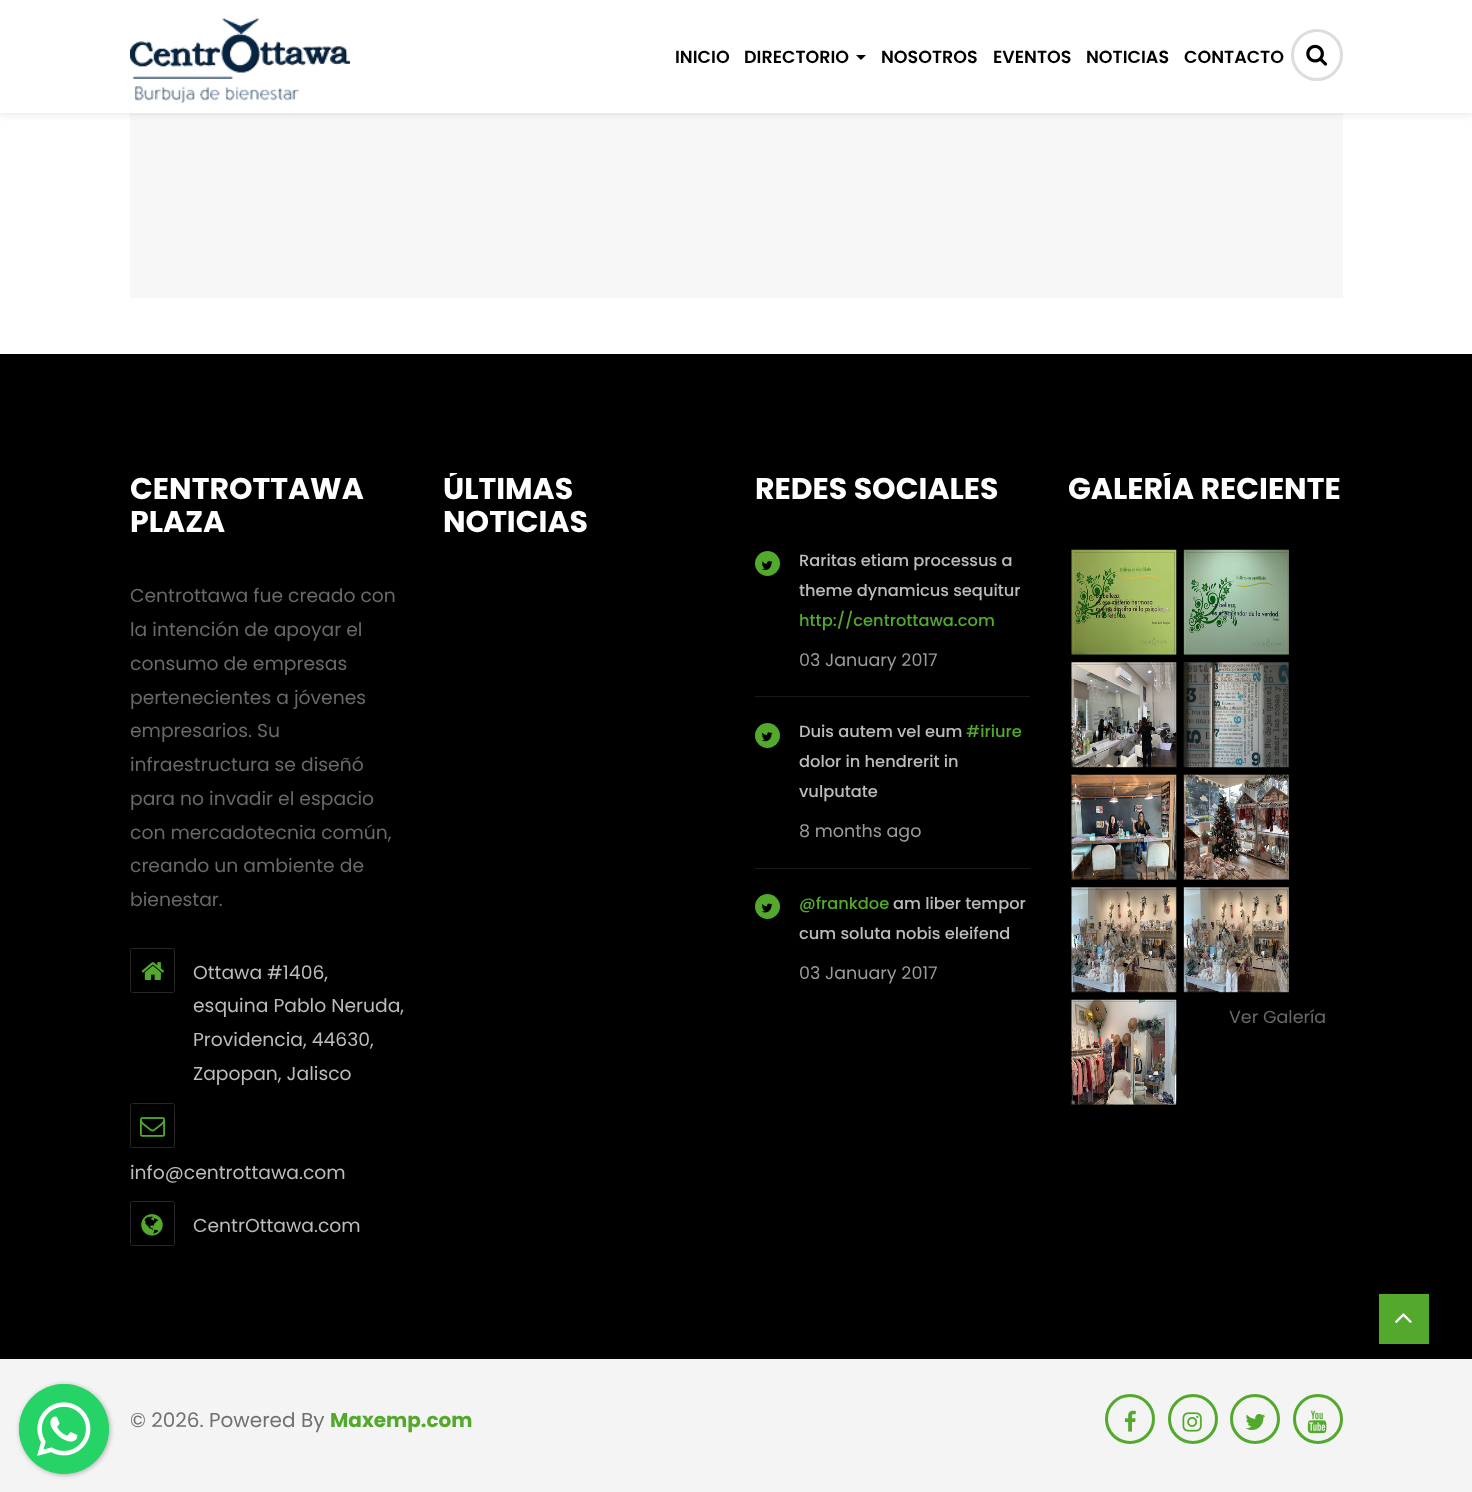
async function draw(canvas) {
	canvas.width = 1472;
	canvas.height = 1492;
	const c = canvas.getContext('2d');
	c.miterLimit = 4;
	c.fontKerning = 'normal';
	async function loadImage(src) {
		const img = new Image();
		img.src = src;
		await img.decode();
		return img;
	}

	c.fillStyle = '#fff';
	c.fillRect(0, 0, 1472, 1492);
	c.fillStyle = '#f4f4f4';
	c.fillRect(0, 1359, 1472, 133);
	c.fillStyle = '#3c3c3c66';
	c.filter = 'blur(2.5px)';
	c.beginPath();
	c.roundRect(20, 1385, 90, 90, 45);
	c.fill();
	c.filter = 'none';
	c.fillStyle = '#25d366';
	c.beginPath();
	c.arc(64, 1429, 45, 0, 2 * Math.PI);
	c.fill();
	c.drawImage(await loadImage('img1.png'), 19, 1384, 90, 90);
	c.fillStyle = '#f7f7f7';
	c.fillRect(130, 113, 1213, 185);
	c.fillStyle = '#ebebeb';
	c.fillRect(130, 114, 1213, 1);
	c.fillStyle = '#ddd';
	c.filter = 'blur(4.5px)';
	c.beginPath();
	c.rect(0, 0, 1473, 113);
	c.fill();
	c.filter = 'none';
	c.fillStyle = '#fff';
	c.fillRect(0, 0, 1472, 113);
	c.drawImage(await loadImage('img2.png'), 130, 18, 220, 85);
	c.font = '600 17.5px Poppins';
	c.fillStyle = '#000';
	c.fillText('INICIO', 675, 63);
	c.fillText('DIRECTORIO', 744, 63);
	c.beginPath();
	c.moveTo(856, 55);
	c.lineTo(866, 55);
	c.lineTo(861, 60);
	c.closePath();
	c.fill();
	for (const [text, x, y] of [
		['NOSOTROS', 881, 63],
		['EVENTOS', 993, 63],
		['NOTICIAS', 1086, 63],
		['CONTACTO', 1184, 63],
	]) {
		c.fillText(text, x, y);
	}
	c.beginPath();
	c.arc(1317, 55, 24.5, 0, 2 * Math.PI);
	c.strokeStyle = '#ddd';
	c.lineWidth = 3;
	c.stroke();
	c.drawImage(await loadImage('img3.png'), 1306, 44, 22, 22);
	c.fillRect(0, 354, 1472, 1005);
	c.font = 'bold 30px Poppins';
	c.fillStyle = '#fefefe';
	c.fillText('CENTROTTAWA', 130, 499);
	c.fillText('PLAZA', 130, 532);
	c.font = '18.75px Poppins';
	c.fillStyle = '#696969';
	for (const [text, x, y] of [
		['Centrottawa fue creado con', 130, 602],
		['la intención de apoyar el', 130, 636],
		['consumo de empresas', 130, 670],
		['pertenecientes a jóvenes', 130, 704],
		['empresarios. Su', 130, 737],
		['infraestructura se diseñó', 130, 771],
		['para no invadir el espacio', 130, 805],
		['con mercadotecnia común,', 130, 839],
		['creando un ambiente de', 130, 872],
		['bienestar.', 130, 906],
	]) {
		c.fillText(text, x, y);
	}
	c.beginPath();
	c.roundRect(130.5, 948.5, 44, 44, 2);
	c.strokeStyle = '#272727';
	c.lineWidth = 1;
	c.stroke();
	c.drawImage(await loadImage('img4.png'), 141, 962, 24, 18);
	c.fillStyle = '#bcbcbc';
	for (const [text, x, y] of [
		['Ottawa #1406,', 193, 979],
		['esquina Pablo Neruda,', 193, 1012],
		['Providencia, 44630,', 193, 1046],
		['Zapopan, Jalisco', 193, 1080],
	]) {
		c.fillText(text, x, y);
	}
	c.beginPath();
	c.roundRect(130.5, 1103.5, 44, 44, 2);
	c.stroke();
	c.drawImage(await loadImage('img5.png'), 140, 1117, 25, 20);
	c.fillText('info@centrottawa.com', 130, 1179);
	c.beginPath();
	c.roundRect(130.5, 1201.5, 44, 44, 2);
	c.stroke();
	c.drawImage(await loadImage('img6.png'), 141, 1214, 22, 22);
	c.fillText('CentrOttawa.com', 193, 1232);
	c.save();
	c.beginPath();
	c.rect(130, 473, 1213, 780);
	c.clip();
	c.font = 'bold 30px Poppins';
	c.fillStyle = '#fefefe';
	c.fillText('ÚLTIMAS', 443, 499);
	c.restore();
	c.font = 'bold 30px Poppins';
	c.fillStyle = '#fefefe';
	c.fillText('NOTICIAS', 443, 532);
	c.fillText('REDES SOCIALES', 755, 499);
	c.fillStyle = '#1a1a1a';
	c.fillRect(755, 696, 275, 1);
	c.fillStyle = '#53a92c';
	c.beginPath();
	c.arc(767.5, 563.5, 12.5, 0, 2 * Math.PI);
	c.fill();
	c.drawImage(await loadImage('img7.png'), 761, 561, 12, 9);
	c.font = '500 16.25px Poppins';
	c.fillStyle = '#bcbcbc';
	c.fillText('Raritas etiam processus a', 799, 566);
	c.fillText('theme dynamicus sequitur', 799, 596);
	c.fillStyle = '#53a92c';
	c.fillText('http://centrottawa.com', 799, 626);
	c.font = '17.5px Poppins';
	c.fillStyle = '#9b9b9b';
	c.fillText('03 January 2017', 799, 666);
	c.fillStyle = '#1a1a1a';
	c.fillRect(755, 868, 275, 1);
	c.fillStyle = '#53a92c';
	c.beginPath();
	c.arc(767.5, 735.5, 12.5, 0, 2 * Math.PI);
	c.fill();
	c.drawImage(await loadImage('img8.png'), 761, 732, 12, 10);
	c.font = '500 16.25px Poppins';
	c.fillStyle = '#bcbcbc';
	c.fillText('Duis autem vel eum', 799, 737);
	c.fillStyle = '#53a92c';
	c.fillText('#iriure', 966, 737);
	c.fillStyle = '#bcbcbc';
	c.fillText('dolor in hendrerit in', 799, 767);
	c.fillText('vulputate', 799, 797);
	c.font = '17.5px Poppins';
	c.fillStyle = '#9b9b9b';
	c.fillText('8 months ago', 799, 837);
	c.fillStyle = '#53a92c';
	c.beginPath();
	c.arc(767.5, 906.5, 12.5, 0, 2 * Math.PI);
	c.fill();
	c.drawImage(await loadImage('img9.png'), 761, 903, 12, 10);
	c.font = '500 16.25px Poppins';
	c.fillText('@frankdoe', 799, 909);
	c.fillStyle = '#bcbcbc';
	c.fillText('am liber tempor', 893, 909);
	c.fillText('cum soluta nobis eleifend', 799, 939);
	c.font = '17.5px Poppins';
	c.fillStyle = '#9b9b9b';
	c.fillText('03 January 2017', 799, 979);
	c.save();
	c.beginPath();
	c.rect(130, 473, 1213, 780);
	c.clip();
	c.font = 'bold 30px Poppins';
	c.fillStyle = '#fefefe';
	c.fillText('GALERÍA RECIENTE', 1068, 499);
	c.restore();
	c.drawImage(await loadImage('img10.png'), 1071, 549, 106, 106);
	c.drawImage(await loadImage('img11.png'), 1183, 549, 106, 106);
	c.drawImage(await loadImage('img12.png'), 1071, 662, 106, 106);
	c.drawImage(await loadImage('img13.png'), 1183, 662, 106, 106);
	c.drawImage(await loadImage('img14.png'), 1071, 774, 106, 106);
	c.drawImage(await loadImage('img15.png'), 1183, 774, 106, 106);
	c.drawImage(await loadImage('img16.png'), 1071, 887, 106, 106);
	c.drawImage(await loadImage('img17.png'), 1183, 887, 106, 106);
	c.drawImage(await loadImage('img18.png'), 1071, 999, 106, 106);
	c.fillStyle = '#696969';
	c.fillText('Ver Galería', 1229, 1023);
	c.font = '20px Poppins';
	c.fillStyle = '#707070';
	c.fillText('© 2026. Powered By', 130, 1427);
	c.font = 'bold 20px Poppins';
	c.fillStyle = '#53a92c';
	c.fillText('Maxemp.com', 330, 1427);
	c.beginPath();
	c.arc(1130, 1419, 23.5, 0, 2 * Math.PI);
	c.strokeStyle = '#53a92c';
	c.lineWidth = 3;
	c.stroke();
	c.drawImage(await loadImage('img19.png'), 1124, 1410, 12, 22);
	c.beginPath();
	c.arc(1193, 1419, 23.5, 0, 2 * Math.PI);
	c.stroke();
	c.drawImage(await loadImage('img20.png'), 1182, 1412, 20, 20);
	c.beginPath();
	c.arc(1255, 1419, 23.5, 0, 2 * Math.PI);
	c.stroke();
	c.drawImage(await loadImage('img21.png'), 1245, 1413, 21, 17);
	c.beginPath();
	c.arc(1318, 1419, 23.5, 0, 2 * Math.PI);
	c.stroke();
	c.drawImage(await loadImage('img22.png'), 1307, 1410, 20, 24);
	c.fillRect(1379, 1294, 50, 50);
	c.drawImage(await loadImage('img23.png'), 1395, 1313, 17, 10);
}

draw(document.querySelector('canvas'));
